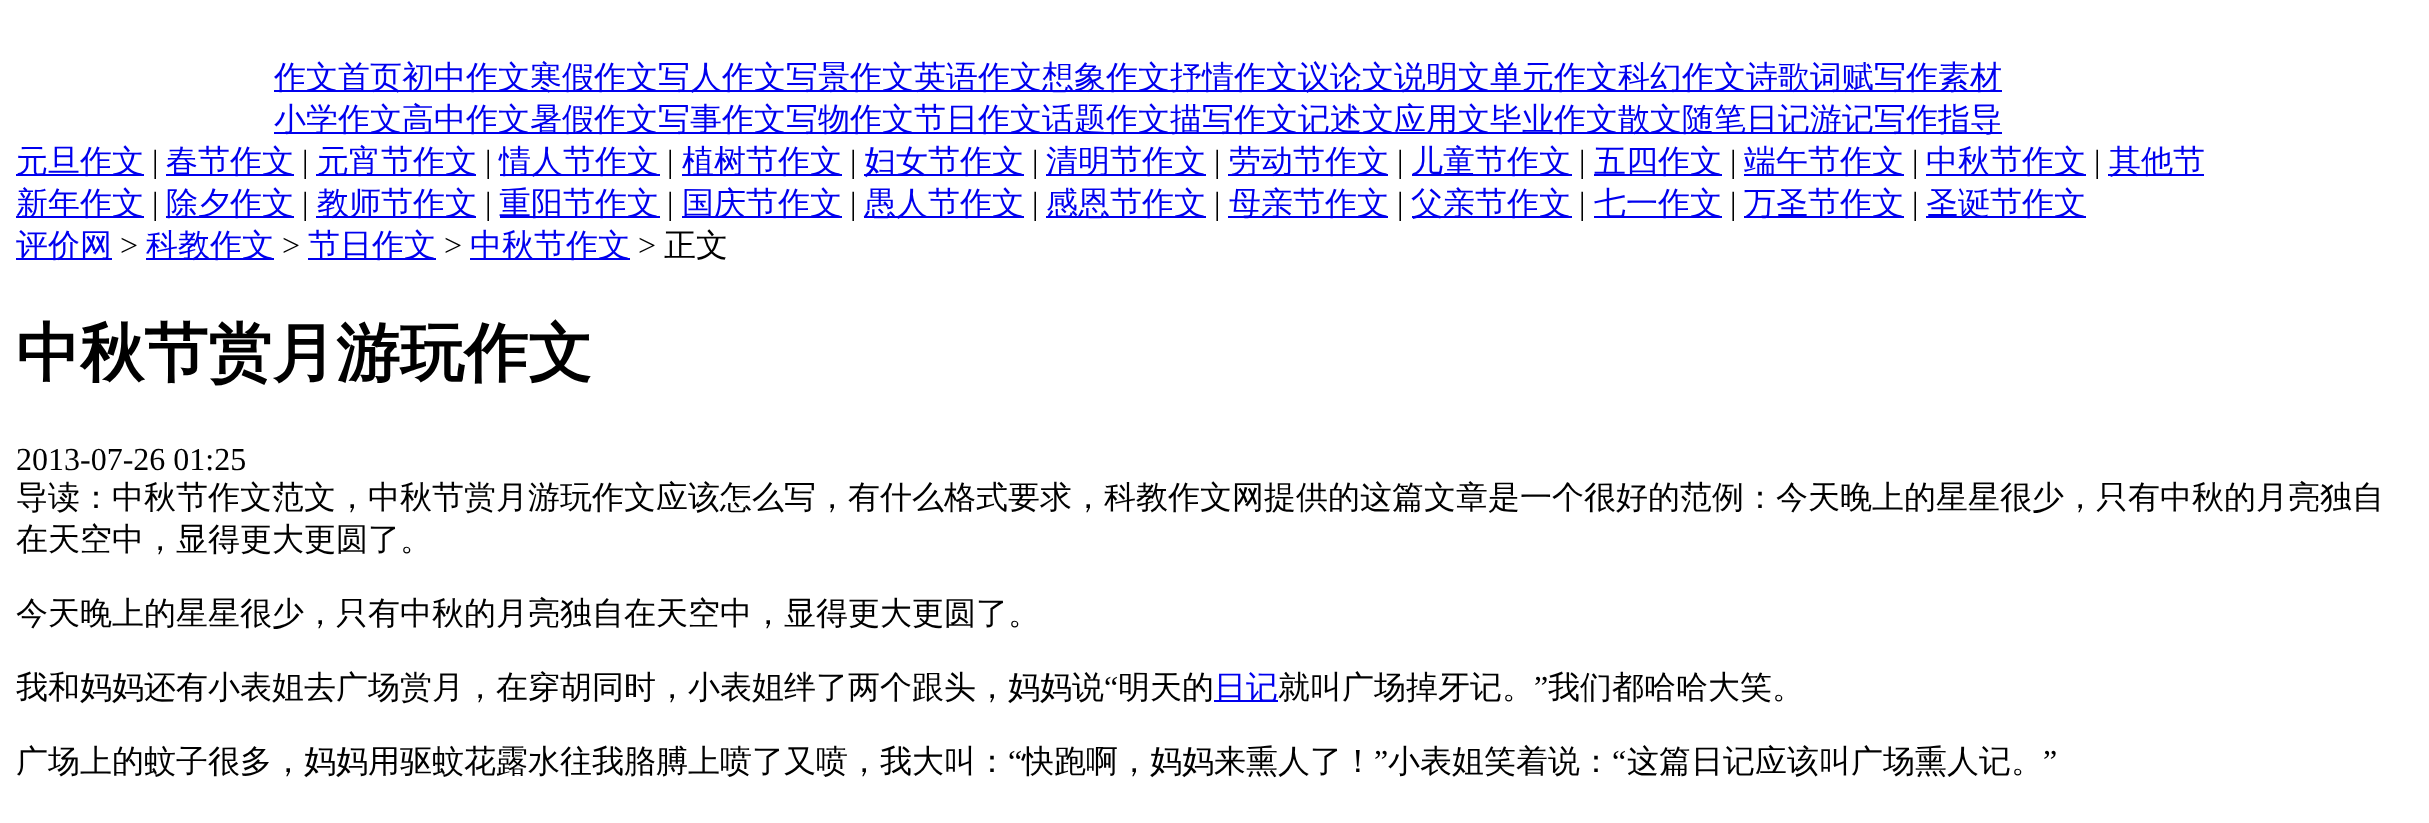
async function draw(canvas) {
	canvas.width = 2429;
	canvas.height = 823;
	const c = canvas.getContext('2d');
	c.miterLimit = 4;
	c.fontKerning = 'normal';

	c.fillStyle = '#fff';
	c.fillRect(0, 0, 2429, 823);
	c.fillStyle = '#00e';
	c.fillRect(274, 90, 1728, 2);
	c.font = '500 32px WenQuanYi Zen Hei';
	c.fillText('作文首页初中作文寒假作文写人作文写景作文英语作文想象作文抒情作文议论文说明文单元作文科幻作文诗歌词赋写作素材', 274, 88);
	c.fillRect(274, 132, 1728, 2);
	c.fillText('小学作文高中作文暑假作文写事作文写物作文节日作文话题作文描写作文记述文应用文毕业作文散文随笔日记游记写作指导', 274, 130);
	c.fillRect(16, 174, 128, 2);
	c.fillText('元旦作文', 16, 172);
	c.font = '32px Liberation Serif';
	c.fillStyle = '#000';
	c.fillText('|', 152, 172);
	c.fillStyle = '#00e';
	c.fillRect(166, 174, 128, 2);
	c.font = '500 32px WenQuanYi Zen Hei';
	c.fillText('春节作文', 166, 172);
	c.font = '32px Liberation Serif';
	c.fillStyle = '#000';
	c.fillText('|', 302, 172);
	c.fillStyle = '#00e';
	c.fillRect(316, 174, 160, 2);
	c.font = '500 32px WenQuanYi Zen Hei';
	c.fillText('元宵节作文', 317, 172);
	c.font = '32px Liberation Serif';
	c.fillStyle = '#000';
	c.fillText('|', 485, 172);
	c.fillStyle = '#00e';
	c.fillRect(500, 174, 160, 2);
	c.font = '500 32px WenQuanYi Zen Hei';
	c.fillText('情人节作文', 499, 172);
	c.font = '32px Liberation Serif';
	c.fillStyle = '#000';
	c.fillText('|', 667, 172);
	c.fillStyle = '#00e';
	c.fillRect(682, 174, 160, 2);
	c.font = '500 32px WenQuanYi Zen Hei';
	c.fillText('植树节作文', 682, 172);
	c.font = '32px Liberation Serif';
	c.fillStyle = '#000';
	c.fillText('|', 850, 172);
	c.fillStyle = '#00e';
	c.fillRect(864, 174, 160, 2);
	c.font = '500 32px WenQuanYi Zen Hei';
	c.fillText('妇女节作文', 864, 172);
	c.font = '32px Liberation Serif';
	c.fillStyle = '#000';
	c.fillText('|', 1032, 172);
	c.fillStyle = '#00e';
	c.fillRect(1046, 174, 160, 2);
	c.font = '500 32px WenQuanYi Zen Hei';
	c.fillText('清明节作文', 1046, 172);
	c.font = '32px Liberation Serif';
	c.fillStyle = '#000';
	c.fillText('|', 1214, 172);
	c.fillStyle = '#00e';
	c.fillRect(1228, 174, 160, 2);
	c.font = '500 32px WenQuanYi Zen Hei';
	c.fillText('劳动节作文', 1229, 172);
	c.font = '32px Liberation Serif';
	c.fillStyle = '#000';
	c.fillText('|', 1397, 172);
	c.fillStyle = '#00e';
	c.fillRect(1412, 174, 160, 2);
	c.font = '500 32px WenQuanYi Zen Hei';
	c.fillText('儿童节作文', 1411, 172);
	c.font = '32px Liberation Serif';
	c.fillStyle = '#000';
	c.fillText('|', 1579, 172);
	c.fillStyle = '#00e';
	c.fillRect(1594, 174, 128, 2);
	c.font = '500 32px WenQuanYi Zen Hei';
	c.fillText('五四作文', 1594, 172);
	c.font = '32px Liberation Serif';
	c.fillStyle = '#000';
	c.fillText('|', 1730, 172);
	c.fillStyle = '#00e';
	c.fillRect(1744, 174, 160, 2);
	c.font = '500 32px WenQuanYi Zen Hei';
	c.fillText('端午节作文', 1744, 172);
	c.font = '32px Liberation Serif';
	c.fillStyle = '#000';
	c.fillText('|', 1912, 172);
	c.fillStyle = '#00e';
	c.fillRect(1926, 174, 160, 2);
	c.font = '500 32px WenQuanYi Zen Hei';
	c.fillText('中秋节作文', 1926, 172);
	c.font = '32px Liberation Serif';
	c.fillStyle = '#000';
	c.fillText('|', 2094, 172);
	c.fillStyle = '#00e';
	c.fillRect(2108, 174, 96, 2);
	c.font = '500 32px WenQuanYi Zen Hei';
	c.fillText('其他节', 2109, 172);
	c.fillRect(16, 216, 128, 2);
	c.fillText('新年作文', 16, 214);
	c.font = '32px Liberation Serif';
	c.fillStyle = '#000';
	c.fillText('|', 152, 214);
	c.fillStyle = '#00e';
	c.fillRect(166, 216, 128, 2);
	c.font = '500 32px WenQuanYi Zen Hei';
	c.fillText('除夕作文', 166, 214);
	c.font = '32px Liberation Serif';
	c.fillStyle = '#000';
	c.fillText('|', 302, 214);
	c.fillStyle = '#00e';
	c.fillRect(316, 216, 160, 2);
	c.font = '500 32px WenQuanYi Zen Hei';
	c.fillText('教师节作文', 317, 214);
	c.font = '32px Liberation Serif';
	c.fillStyle = '#000';
	c.fillText('|', 485, 214);
	c.fillStyle = '#00e';
	c.fillRect(500, 216, 160, 2);
	c.font = '500 32px WenQuanYi Zen Hei';
	c.fillText('重阳节作文', 499, 214);
	c.font = '32px Liberation Serif';
	c.fillStyle = '#000';
	c.fillText('|', 667, 214);
	c.fillStyle = '#00e';
	c.fillRect(682, 216, 160, 2);
	c.font = '500 32px WenQuanYi Zen Hei';
	c.fillText('国庆节作文', 682, 214);
	c.font = '32px Liberation Serif';
	c.fillStyle = '#000';
	c.fillText('|', 850, 214);
	c.fillStyle = '#00e';
	c.fillRect(864, 216, 160, 2);
	c.font = '500 32px WenQuanYi Zen Hei';
	c.fillText('愚人节作文', 864, 214);
	c.font = '32px Liberation Serif';
	c.fillStyle = '#000';
	c.fillText('|', 1032, 214);
	c.fillStyle = '#00e';
	c.fillRect(1046, 216, 160, 2);
	c.font = '500 32px WenQuanYi Zen Hei';
	c.fillText('感恩节作文', 1046, 214);
	c.font = '32px Liberation Serif';
	c.fillStyle = '#000';
	c.fillText('|', 1214, 214);
	c.fillStyle = '#00e';
	c.fillRect(1228, 216, 160, 2);
	c.font = '500 32px WenQuanYi Zen Hei';
	c.fillText('母亲节作文', 1229, 214);
	c.font = '32px Liberation Serif';
	c.fillStyle = '#000';
	c.fillText('|', 1397, 214);
	c.fillStyle = '#00e';
	c.fillRect(1412, 216, 160, 2);
	c.font = '500 32px WenQuanYi Zen Hei';
	c.fillText('父亲节作文', 1411, 214);
	c.font = '32px Liberation Serif';
	c.fillStyle = '#000';
	c.fillText('|', 1579, 214);
	c.fillStyle = '#00e';
	c.fillRect(1594, 216, 128, 2);
	c.font = '500 32px WenQuanYi Zen Hei';
	c.fillText('七一作文', 1594, 214);
	c.font = '32px Liberation Serif';
	c.fillStyle = '#000';
	c.fillText('|', 1730, 214);
	c.fillStyle = '#00e';
	c.fillRect(1744, 216, 160, 2);
	c.font = '500 32px WenQuanYi Zen Hei';
	c.fillText('万圣节作文', 1744, 214);
	c.font = '32px Liberation Serif';
	c.fillStyle = '#000';
	c.fillText('|', 1912, 214);
	c.fillStyle = '#00e';
	c.fillRect(1926, 216, 160, 2);
	c.font = '500 32px WenQuanYi Zen Hei';
	c.fillText('圣诞节作文', 1926, 214);
	c.fillRect(16, 258, 96, 2);
	c.fillText('评价网', 16, 256);
	c.font = '32px Liberation Serif';
	c.fillStyle = '#000';
	c.fillText('>', 120, 256);
	c.fillStyle = '#00e';
	c.fillRect(146, 258, 128, 2);
	c.font = '500 32px WenQuanYi Zen Hei';
	c.fillText('科教作文', 146, 256);
	c.font = '32px Liberation Serif';
	c.fillStyle = '#000';
	c.fillText('>', 282, 256);
	c.fillStyle = '#00e';
	c.fillRect(308, 258, 128, 2);
	c.font = '500 32px WenQuanYi Zen Hei';
	c.fillText('节日作文', 308, 256);
	c.font = '32px Liberation Serif';
	c.fillStyle = '#000';
	c.fillText('>', 444, 256);
	c.fillStyle = '#00e';
	c.fillRect(470, 258, 160, 2);
	c.font = '500 32px WenQuanYi Zen Hei';
	c.fillText('中秋节作文', 470, 256);
	c.font = '32px Liberation Serif';
	c.fillStyle = '#000';
	c.fillText('>', 638, 256);
	c.font = '500 32px WenQuanYi Zen Hei';
	c.fillText('正文', 664, 256);
	c.font = 'bold 64px WenQuanYi Zen Hei';
	c.fillText('中秋节赏月游玩作文', 16, 375);
	c.font = '32px Liberation Serif';
	c.fillText('2013-07-26 01:25', 16, 470);
	c.font = '500 32px WenQuanYi Zen Hei';
	for (const [text, x, y] of [
		['导读：中秋节作文范文，中秋节赏月游玩作文应该怎么写，有什么格式要求，科教作文网提供的这篇文章是一个很好的范例：今天晚上的星星很少，只有中秋的月亮独自', 16, 508],
		['在天空中，显得更大更圆了。', 16, 550],
		['今天晚上的星星很少，只有中秋的月亮独自在天空中，显得更大更圆了。', 16, 624],
		['我和妈妈还有小表姐去广场赏月，在穿胡同时，小表姐绊了两个跟头，妈妈说', 16, 698],
	]) {
		c.fillText(text, x, y);
	}
	c.font = '32px Liberation Serif';
	c.fillText('“', 1104, 698);
	c.font = '500 32px WenQuanYi Zen Hei';
	c.fillText('明天的', 1118, 698);
	c.fillStyle = '#00e';
	c.fillRect(1214, 700, 64, 2);
	c.fillText('日记', 1214, 698);
	c.fillStyle = '#000';
	c.fillText('就叫广场掉牙记。', 1278, 698);
	c.font = '32px Liberation Serif';
	c.fillText('”', 1534, 698);
	c.font = '500 32px WenQuanYi Zen Hei';
	c.fillText('我们都哈哈大笑。', 1548, 698);
	c.fillText('广场上的蚊子很多，妈妈用驱蚊花露水往我胳膊上喷了又喷，我大叫：', 16, 772);
	c.font = '32px Liberation Serif';
	c.fillText('“', 1008, 772);
	c.font = '500 32px WenQuanYi Zen Hei';
	c.fillText('快跑啊，妈妈来熏人了！', 1022, 772);
	c.font = '32px Liberation Serif';
	c.fillText('”', 1374, 772);
	c.font = '500 32px WenQuanYi Zen Hei';
	c.fillText('小表姐笑着说：', 1388, 772);
	c.font = '32px Liberation Serif';
	c.fillText('“', 1612, 772);
	c.font = '500 32px WenQuanYi Zen Hei';
	c.fillText('这篇日记应该叫广场熏人记。', 1627, 772);
	c.font = '32px Liberation Serif';
	c.fillText('”', 2043, 772);
}

draw(document.querySelector('canvas'));
